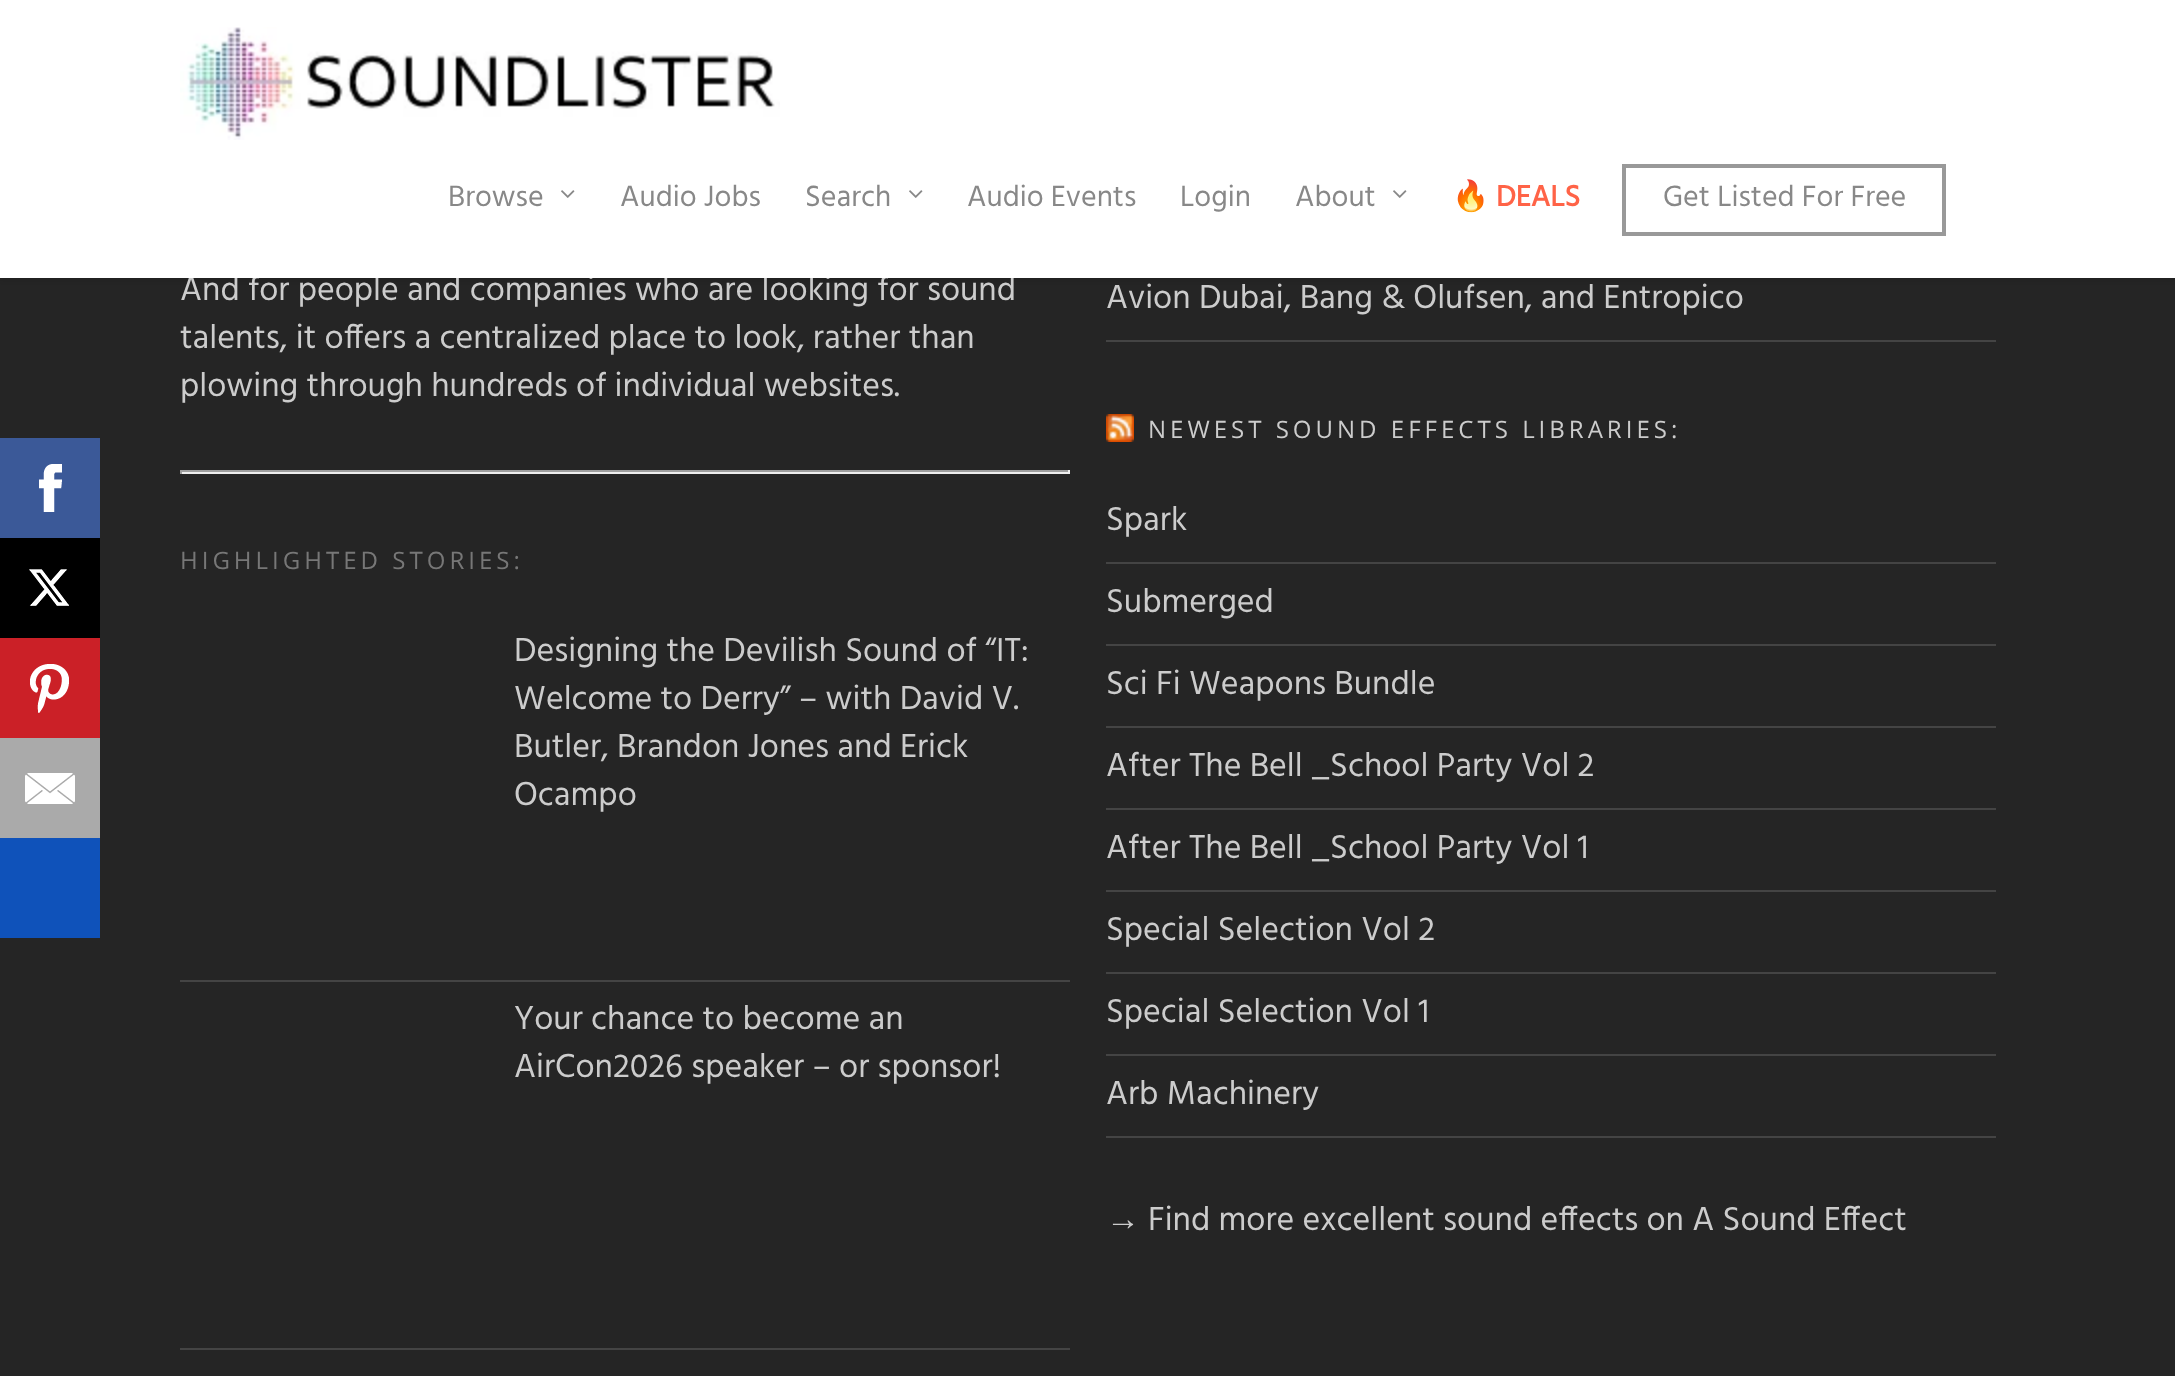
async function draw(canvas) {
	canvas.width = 2175;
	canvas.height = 1376;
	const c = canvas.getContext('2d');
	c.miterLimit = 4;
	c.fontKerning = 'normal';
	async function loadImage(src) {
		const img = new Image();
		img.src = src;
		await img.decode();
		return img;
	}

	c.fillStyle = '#252525';
	c.fillRect(0, 0, 2175, 1376);
	c.fillStyle = '#00000038';
	c.filter = 'blur(3px)';
	c.beginPath();
	c.rect(0, 0, 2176, 278);
	c.fill();
	c.filter = 'none';
	c.font = '34px Hind';
	c.fillStyle = '#ccc';
	c.fillText('And for people and companies who are looking for sound', 180, 300);
	c.fillStyle = '#fff';
	c.fillRect(0, 0, 2175, 278);
	c.drawImage(await loadImage('img1.png'), 180, 27, 600, 113);
	c.font = '30px Hind';
	c.fillStyle = '#888';
	c.fillText('Browse', 448, 206);
	c.drawImage(await loadImage('img2.png'), 561, 190, 14, 8);
	c.fillText('Audio Jobs', 620, 206);
	c.fillText('Search', 805, 206);
	c.drawImage(await loadImage('img2.png'), 909, 190, 14, 8);
	for (const [text, x, y] of [
		['Audio Events', 967, 206],
		['Login', 1180, 206],
		['About', 1295, 206],
	]) {
		c.fillText(text, x, y);
	}
	c.drawImage(await loadImage('img2.png'), 1393, 190, 14, 8);
	c.font = '30px Noto Color Emoji';
	c.fillText('🔥', 1452, 206);
	c.font = 'bold 30px Hind';
	c.fillStyle = '#ff6347';
	c.fillText('DEALS', 1496, 206);
	c.strokeStyle = '#999';
	c.lineWidth = 4;
	c.strokeRect(1624, 166, 320, 68);
	c.font = '30px Hind';
	c.fillStyle = '#888';
	c.fillText('Get Listed For Free', 1663, 206);
	c.fillStyle = '#3b5998';
	c.fillRect(0, 438, 100, 100);
	c.drawImage(await loadImage('img3.png'), 39, 464, 23, 48);
	c.fillStyle = '#000';
	c.fillRect(0, 538, 100, 100);
	c.drawImage(await loadImage('img4.png'), 29, 569, 40, 37);
	c.fillStyle = '#cb2027';
	c.fillRect(0, 638, 100, 100);
	c.drawImage(await loadImage('img5.png'), 30, 664, 39, 49);
	c.fillStyle = '#aaa';
	c.fillRect(0, 738, 100, 100);
	c.drawImage(await loadImage('img6.png'), 25, 773, 50, 31);
	c.fillStyle = '#0f52ba';
	c.fillRect(0, 838, 100, 100);
	c.font = '34px Hind';
	c.fillStyle = '#ccc';
	c.fillText('talents, it offers a centralized place to look, rather than', 180, 348);
	c.fillText('plowing through hundreds of individual websites.', 180, 396);
	for (const [x, y, w, h, color] of [
		[180, 470, 890, 2, '#9f9f9f'],
		[1068, 470, 2, 4, '#eee'],
		[180, 472, 890, 2, '#eee'],
		[180, 470, 2, 4, '#9f9f9f'],
	]) {
		c.fillStyle = color;
		c.fillRect(x, y, w, h);
	}
	c.letterSpacing = '4px';
	c.font = '24px Open Sans';
	c.fillStyle = '#777';
	c.fillText('HIGHLIGHTED STORIES:', 180, 569);
	c.fillStyle = '#444';
	c.fillRect(180, 980, 890, 2);
	c.letterSpacing = '0px';
	c.font = '34px Hind';
	c.fillStyle = '#ccc';
	for (const [text, x, y] of [
		['Designing the Devilish Sound of “IT:', 514, 661],
		['Welcome to Derry” – with David V.', 514, 709],
		['Butler, Brandon Jones and Erick', 514, 757],
		['Ocampo', 514, 805],
	]) {
		c.fillText(text, x, y);
	}
	c.fillStyle = '#444';
	c.fillRect(180, 1348, 890, 2);
	c.fillStyle = '#ccc';
	c.fillText('Your chance to become an', 514, 1029);
	c.fillText('AirCon2026 speaker – or sponsor!', 514, 1077);
	c.fillStyle = '#444';
	c.fillRect(1106, 340, 890, 2);
	c.fillStyle = '#ccc';
	c.fillText('Avion Dubai, Bang & Olufsen, and Entropico', 1106, 308);
	c.drawImage(await loadImage('img7.png'), 1106, 414, 28, 28);
	c.letterSpacing = '4px';
	c.font = '24px Open Sans';
	c.fillText('NEWEST SOUND EFFECTS LIBRARIES:', 1148, 438);
	c.fillStyle = '#444';
	c.fillRect(1106, 562, 890, 2);
	c.letterSpacing = '0px';
	c.font = '34px Hind';
	c.fillStyle = '#ccc';
	c.fillText('Spark', 1106, 530);
	c.fillStyle = '#444';
	c.fillRect(1106, 644, 890, 2);
	c.fillStyle = '#ccc';
	c.fillText('Submerged', 1106, 612);
	c.fillStyle = '#444';
	c.fillRect(1106, 726, 890, 2);
	c.fillStyle = '#ccc';
	c.fillText('Sci Fi Weapons Bundle', 1106, 694);
	c.fillStyle = '#444';
	c.fillRect(1106, 808, 890, 2);
	c.fillStyle = '#ccc';
	c.fillText('After The Bell _School Party Vol 2', 1106, 776);
	c.fillStyle = '#444';
	c.fillRect(1106, 890, 890, 2);
	c.fillStyle = '#ccc';
	c.fillText('After The Bell _School Party Vol 1', 1106, 858);
	c.fillStyle = '#444';
	c.fillRect(1106, 972, 890, 2);
	c.fillStyle = '#ccc';
	c.fillText('Special Selection Vol 2', 1106, 940);
	c.fillStyle = '#444';
	c.fillRect(1106, 1054, 890, 2);
	c.fillStyle = '#ccc';
	c.fillText('Special Selection Vol 1', 1106, 1022);
	c.fillStyle = '#444';
	c.fillRect(1106, 1136, 890, 2);
	c.fillStyle = '#ccc';
	c.fillText('Arb Machinery', 1106, 1104);
	c.font = '34px Liberation Serif';
	c.fillText('→', 1106, 1230);
	c.font = '34px Hind';
	c.fillText('Find more excellent sound effects on A Sound Effect', 1148, 1230);
}

draw(document.querySelector('canvas'));
